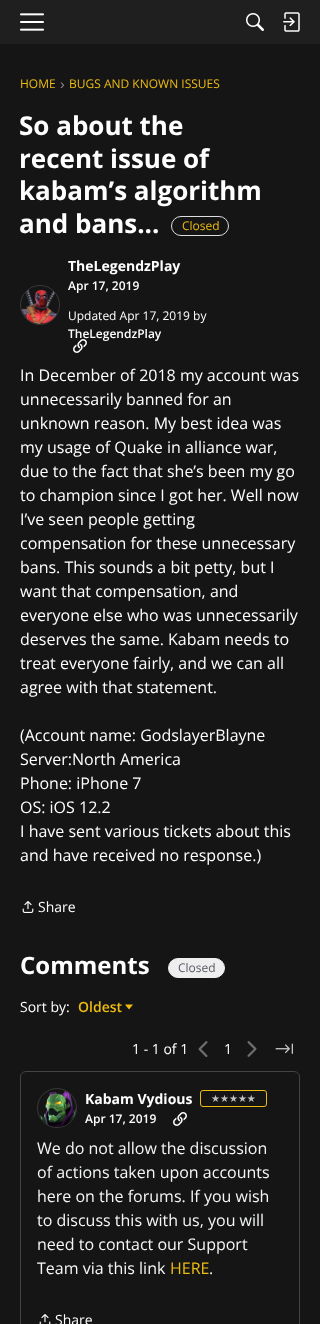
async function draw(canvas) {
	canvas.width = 320;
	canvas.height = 1324;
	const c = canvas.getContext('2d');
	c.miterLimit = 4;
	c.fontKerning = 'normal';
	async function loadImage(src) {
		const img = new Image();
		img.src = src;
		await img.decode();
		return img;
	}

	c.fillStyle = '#151515';
	c.fillRect(0, 0, 320, 1324);
	c.fillStyle = '#1f1f1f';
	c.fillRect(0, 0, 320, 44);
	c.drawImage(await loadImage('img1.png'), 20, 13, 24, 18);
	c.drawImage(await loadImage('img2.png'), 246, 13, 18, 18);
	c.drawImage(await loadImage('img3.png'), 283, 12, 17, 20);
	c.font = '12px Open Sans';
	c.fillStyle = '#eebc11';
	c.fillText('HOME', 20, 88);
	c.font = '14px Liberation Sans';
	c.fillStyle = '#8a8a8a';
	c.fillText('›', 60, 89);
	c.font = '12px Open Sans';
	c.fillStyle = '#eebc11';
	c.fillText('BUGS AND KNOWN ISSUES', 69, 88);
	c.font = 'bold 26px Open Sans';
	c.fillStyle = '#fff';
	for (const [text, x, y] of [
		['So about the', 19, 135],
		['recent issue of', 19, 168],
		['kabam’s algorithm', 19, 200],
		['and bans...', 19, 233],
	]) {
		c.fillText(text, x, y);
	}
	c.beginPath();
	c.roundRect(171.5, 216.5, 57, 19, 9.5);
	c.strokeStyle = '#dddee0';
	c.stroke();
	c.font = '12px Open Sans';
	c.fillStyle = '#eebc11';
	c.fillText('Closed', 182, 230);
	c.beginPath();
	c.arc(40, 305, 19.5, 0, 2 * Math.PI);
	c.strokeStyle = '#383838';
	c.stroke();
	c.drawImage(await loadImage('img4.png'), 21, 289, 36, 35);
	c.font = 'bold 14px Open Sans';
	c.fillStyle = '#fff';
	c.fillText('TheLegendzPlay', 68, 271);
	c.font = '600 12px Open Sans';
	c.fillText('Apr 17, 2019', 68, 290);
	c.font = '12px Open Sans';
	c.fillText('Updated Apr 17, 2019 by', 68, 320);
	c.font = '600 12px Open Sans';
	c.fillText('TheLegendzPlay', 68, 338);
	c.drawImage(await loadImage('img5.png'), 73, 339, 14, 14);
	c.font = '16px Open Sans';
	for (const [text, x, y] of [
		['In December of 2018 my account was', 20, 381],
		['unnecessarily banned for an', 20, 405],
		['unknown reason. My best idea was', 20, 429],
		['my usage of Quake in alliance war,', 20, 453],
		['due to the fact that she’s been my go', 20, 477],
		['to champion since I got her. Well now', 20, 501],
		['I’ve seen people getting', 20, 525],
		['compensation for these unnecessary', 20, 549],
		['bans. This sounds a bit petty, but I', 20, 573],
		['want that compensation, and', 20, 597],
		['everyone else who was unnecessarily', 20, 621],
		['deserves the same. Kabam needs to', 20, 645],
		['treat everyone fairly, and we can all', 20, 669],
		['agree with that statement.', 20, 693],
		['(Account name: GodslayerBlayne', 20, 741],
		['Server:North America', 20, 765],
		['Phone: iPhone 7', 20, 789],
		['OS: iOS 12.2', 20, 813],
		['I have sent various tickets about this', 20, 837],
		['and have received no response.)', 20, 861],
	]) {
		c.fillText(text, x, y);
	}
	c.drawImage(await loadImage('img6.png'), 22, 901, 12, 12);
	c.font = '14px Open Sans';
	c.fillText('Share', 38, 912);
	c.font = 'bold 24px Open Sans';
	c.fillText('Comments', 20, 974);
	c.fillStyle = '#eeeeef';
	c.beginPath();
	c.roundRect(168.5, 958.5, 56, 19, 9.5);
	c.fill();
	c.strokeStyle = '#eeeeef';
	c.stroke();
	c.font = '12px Open Sans';
	c.fillStyle = '#555a62';
	c.fillText('Closed', 178, 972);
	c.font = '14px Open Sans';
	c.fillStyle = '#fff';
	c.fillText('Sort by:', 20, 1012);
	c.font = '600 14px Open Sans';
	c.fillStyle = '#eebc11';
	c.fillText('Oldest', 78, 1012);
	c.beginPath();
	c.moveTo(125, 1004.5);
	c.lineTo(133, 1004.5);
	c.lineTo(129, 1009.5);
	c.closePath();
	c.fill();
	c.font = '14px Open Sans';
	c.fillStyle = '#fff';
	c.fillText('1 - 1 of 1', 132, 1054);
	c.drawImage(await loadImage('img7.png'), 198, 1041, 10, 16);
	c.fillText('1', 224, 1054);
	c.drawImage(await loadImage('img8.png'), 247, 1041, 10, 16);
	c.drawImage(await loadImage('img9.png'), 275, 1043, 18, 11);
	c.beginPath();
	c.roundRect(20.5, 1071.5, 279, 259, 5.5);
	c.strokeStyle = '#444';
	c.stroke();
	c.beginPath();
	c.arc(57, 1108, 19.5, 0, 2 * Math.PI);
	c.strokeStyle = '#383838';
	c.stroke();
	c.drawImage(await loadImage('img10.png'), 40, 1091, 36, 36);
	c.font = 'bold 14px Open Sans';
	c.fillText('Kabam Vydious', 85, 1104);
	c.beginPath();
	c.roundRect(200.5, 1090.5, 66, 16, 2.5);
	c.strokeStyle = '#eebc11';
	c.stroke();
	c.font = '10px DejaVu Sans';
	c.fillStyle = '#c0c0c0';
	c.fillText('★★★★★', 211, 1102);
	c.font = '600 12px Open Sans';
	c.fillStyle = '#fff';
	c.fillText('Apr 17, 2019', 85, 1123);
	c.drawImage(await loadImage('img5.png'), 173, 1112, 14, 14);
	c.font = '16px Open Sans';
	c.fillStyle = '#f5f6f7';
	for (const [text, x, y] of [
		['We do not allow the discussion', 37, 1154],
		['of actions taken upon accounts', 37, 1178],
		['here on the forums. If you wish', 37, 1202],
		['to discuss this with us, you will', 37, 1226],
		['need to contact our Support', 37, 1250],
		['Team via this link', 37, 1274],
	]) {
		c.fillText(text, x, y);
	}
	c.fillStyle = '#eebc11';
	c.fillText('HERE', 170, 1274);
	c.fillStyle = '#f5f6f7';
	c.fillText('.', 209, 1274);
	c.drawImage(await loadImage('img11.png'), 39, 1314, 12, 10);
	c.font = '14px Open Sans';
	c.fillStyle = '#fff';
	c.fillText('Share', 55, 1325);
}

draw(document.querySelector('canvas'));
